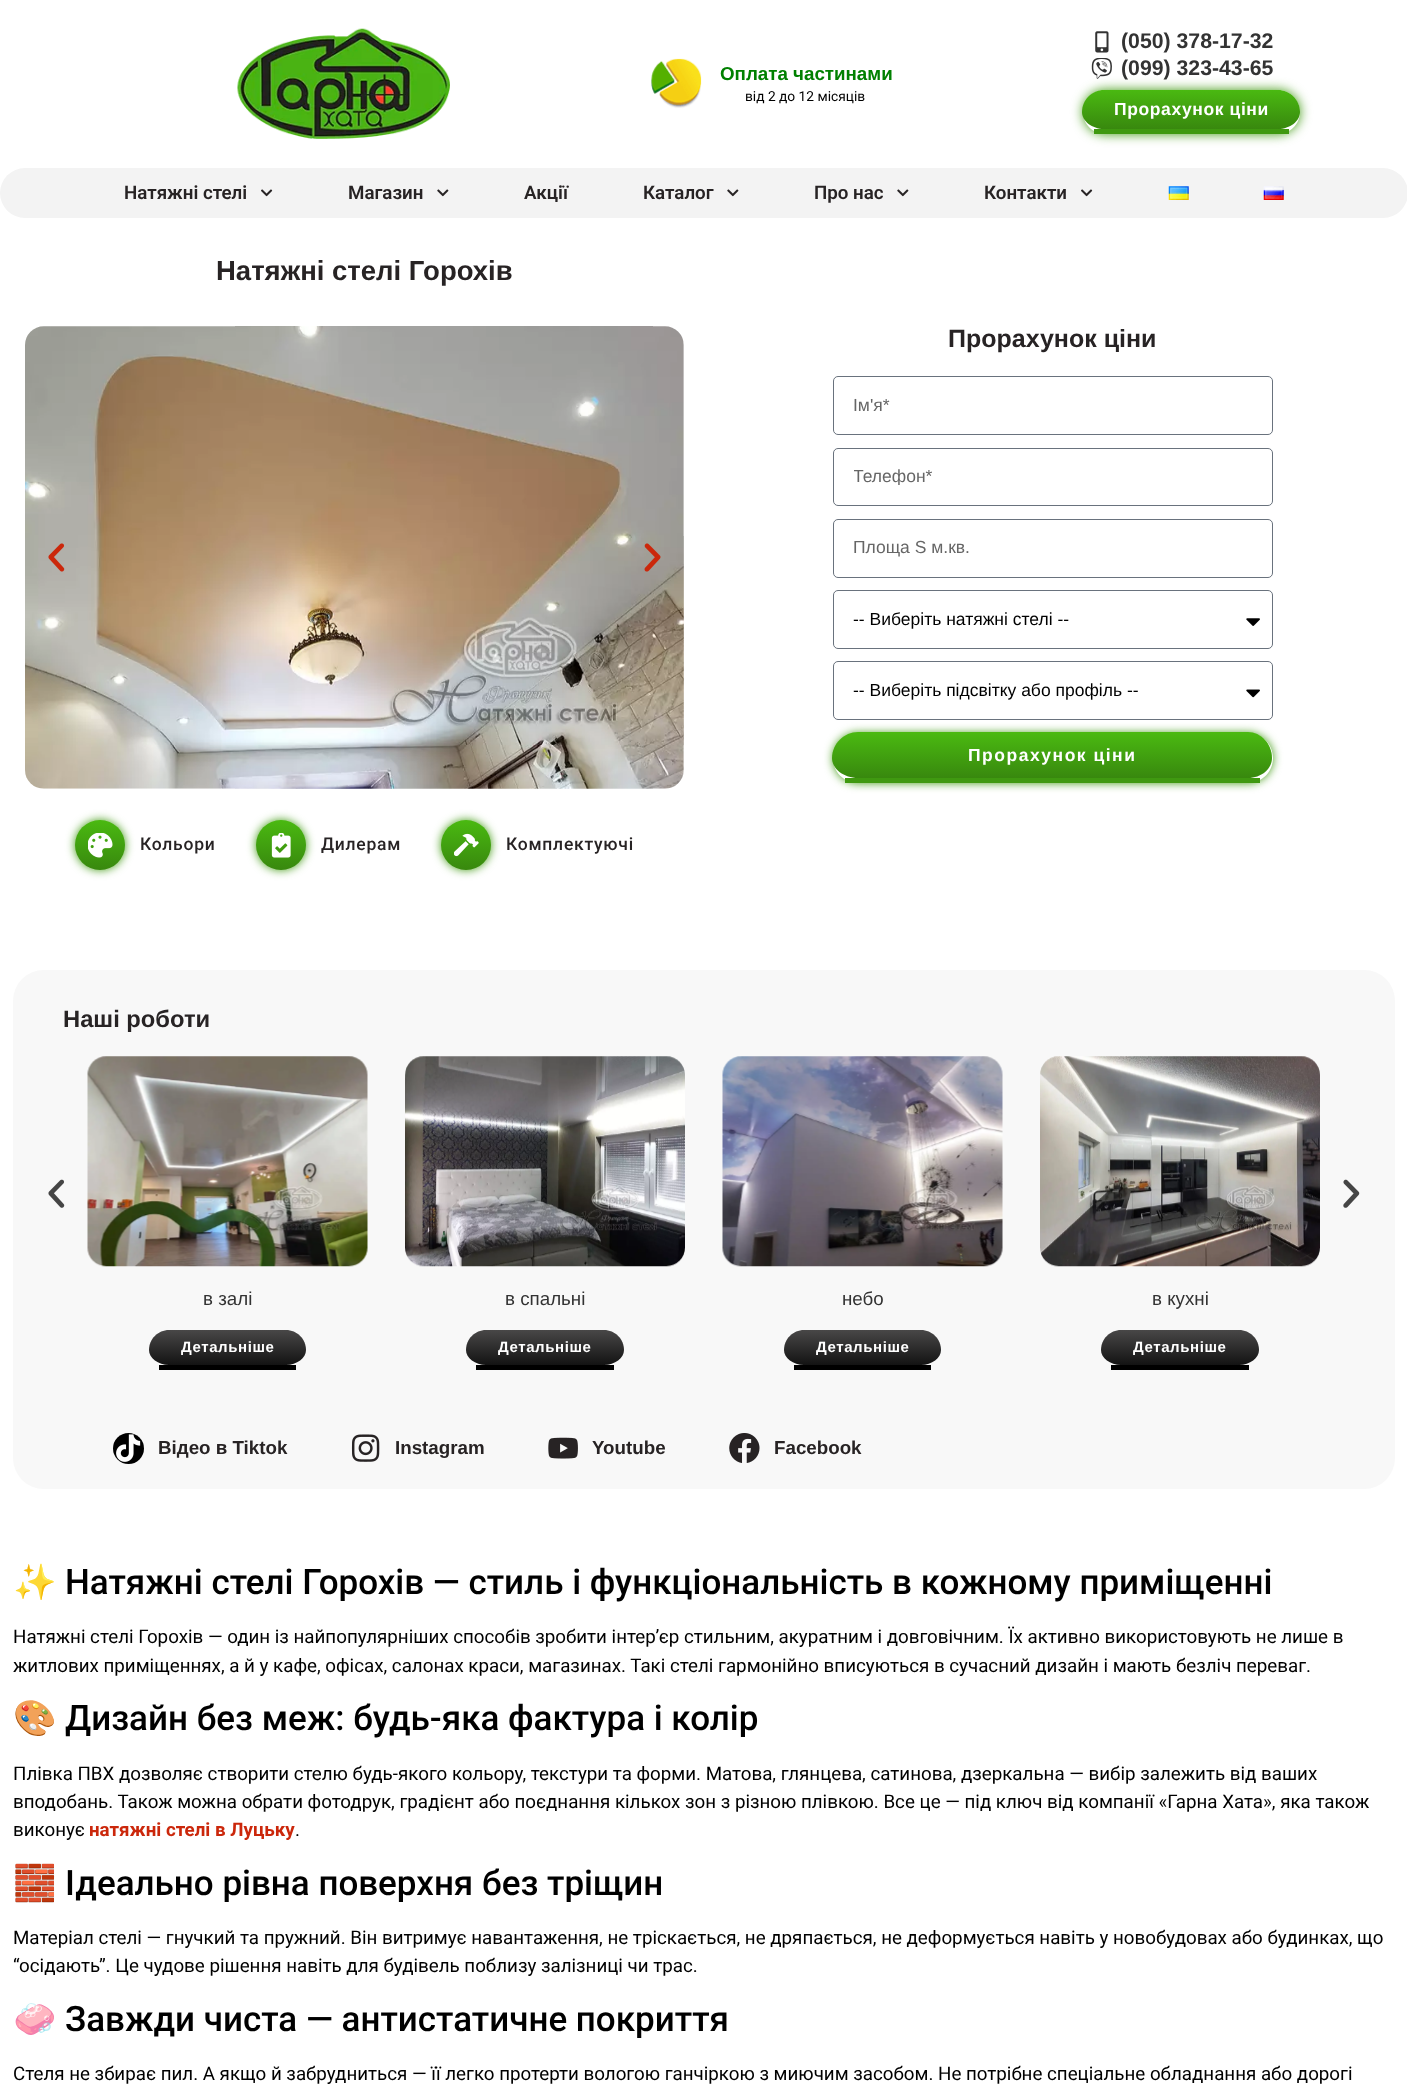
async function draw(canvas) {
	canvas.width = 1407;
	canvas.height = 2085;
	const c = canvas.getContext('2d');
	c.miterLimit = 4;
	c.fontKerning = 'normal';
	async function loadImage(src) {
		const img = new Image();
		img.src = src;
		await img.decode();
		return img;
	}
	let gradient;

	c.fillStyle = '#fff';
	c.fillRect(0, 0, 1407, 2085);
	c.drawImage(await loadImage('img1.png'), 237, 28, 213, 111);
	c.drawImage(await loadImage('img2.png'), 651, 58, 51, 51);
	c.font = 'bold 18.75px Liberation Sans';
	c.fillStyle = '#008000';
	c.fillText('Оплата частинами', 720, 80);
	c.font = '13.75px Roboto';
	c.fillStyle = '#000';
	c.fillText('від 2 до 12 місяців', 745, 101);
	c.drawImage(await loadImage('img3.png'), 1095, 31, 14, 22);
	c.font = 'bold 21.25px Liberation Sans';
	c.fillStyle = '#333';
	c.fillText('(050) 378-17-32', 1121, 48);
	c.drawImage(await loadImage('img4.png'), 1091, 58, 21, 21);
	c.fillText('(099) 323-43-65', 1121, 75);
	c.save();
	c.beginPath();
	c.moveTo(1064, 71);
	c.lineTo(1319, 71);
	c.lineTo(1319, 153);
	c.lineTo(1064, 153);
	c.closePath();
	c.moveTo(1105, 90);
	c.lineTo(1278, 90);
	c.bezierCurveTo(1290, 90, 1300, 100, 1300, 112);
	c.bezierCurveTo(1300, 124, 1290, 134, 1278, 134);
	c.lineTo(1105, 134);
	c.bezierCurveTo(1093, 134, 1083, 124, 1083, 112);
	c.bezierCurveTo(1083, 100, 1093, 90, 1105, 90);
	c.closePath();
	c.clip('evenodd');
	c.fillStyle = '#3f9910';
	c.filter = 'blur(6px)';
	c.beginPath();
	c.roundRect(1083, 90, 217, 44, 22);
	c.fill();
	c.filter = 'none';
	c.restore();
	gradient = c.createLinearGradient(1191, 90, 1191, 129);
	gradient.addColorStop(0, '#4ab911');
	gradient.addColorStop(1, '#38880e');
	c.fillStyle = gradient;
	c.beginPath();
	c.moveTo(1104, 90);
	c.lineTo(1278, 90);
	c.bezierCurveTo(1290, 90, 1300, 100, 1300, 112);
	c.bezierCurveTo(1300, 121, 1290, 129, 1278, 129);
	c.lineTo(1104, 129);
	c.bezierCurveTo(1092, 129, 1082, 121, 1082, 112);
	c.bezierCurveTo(1082, 100, 1092, 90, 1104, 90);
	c.closePath();
	c.fill();
	c.fillStyle = '#3f9910';
	c.fillRect(1094, 129, 195, 5);
	c.letterSpacing = '0.6px';
	c.font = 'bold 17.5px Liberation Sans';
	c.fillStyle = '#fff';
	c.fillText('Прорахунок ціни', 1114, 115);
	c.fillStyle = '#f3f3f3';
	c.beginPath();
	c.roundRect(0, 168, 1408, 50, 25);
	c.fill();
	c.letterSpacing = '0px';
	c.font = '600 18.75px Roboto';
	c.fillStyle = '#272324';
	c.fillText('Натяжні стелі', 124, 199);
	c.drawImage(await loadImage('img5.png'), 261, 189, 12, 8);
	c.fillText('Магазин', 348, 199);
	c.drawImage(await loadImage('img6.png'), 437, 189, 12, 8);
	c.fillText('Акції', 524, 199);
	c.fillText('Каталог', 643, 199);
	c.drawImage(await loadImage('img6.png'), 727, 189, 12, 8);
	c.fillText('Про нас', 814, 199);
	c.drawImage(await loadImage('img6.png'), 897, 189, 12, 8);
	c.fillText('Контакти', 984, 199);
	c.drawImage(await loadImage('img5.png'), 1081, 189, 12, 8);
	c.drawImage(await loadImage('img7.png'), 1168, 186, 21, 14);
	c.drawImage(await loadImage('img8.png'), 1263, 186, 21, 14);
	c.font = 'bold 27.5px Liberation Sans';
	c.fillText('Натяжні стелі Горохів', 216, 280);
	c.font = 'bold 25px Liberation Sans';
	c.fillText('Прорахунок ціни', 948, 347);
	c.beginPath();
	c.roundRect(833.5, 376.5, 439, 58, 4.5);
	c.strokeStyle = '#69727d';
	c.stroke();
	c.font = '17.5px Liberation Sans';
	c.fillStyle = '#666';
	c.fillText('Ім\'я*', 853, 411);
	c.beginPath();
	c.roundRect(833.5, 448.5, 439, 57, 4.5);
	c.stroke();
	c.save();
	c.beginPath();
	c.rect(854, 465, 397, 20);
	c.clip();
	c.fillText('Телефон*', 853, 482);
	c.restore();
	c.beginPath();
	c.roundRect(833.5, 519.5, 439, 58, 4.5);
	c.stroke();
	c.fillText('Площа S м.кв.', 853, 553);
	c.beginPath();
	c.roundRect(833.5, 590.5, 439, 58, 4.5);
	c.stroke();
	c.fillStyle = '#000';
	c.fillText('-- Виберіть натяжні стелі --', 853, 625);
	c.drawImage(await loadImage('img9.png'), 1246, 618, 14, 8);
	c.beginPath();
	c.roundRect(833.5, 661.5, 439, 58, 4.5);
	c.stroke();
	c.fillText('-- Виберіть підсвітку або профіль --', 853, 696);
	c.drawImage(await loadImage('img10.png'), 1246, 689, 14, 9);
	c.save();
	c.beginPath();
	c.moveTo(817, 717);
	c.lineTo(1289, 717);
	c.lineTo(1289, 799);
	c.lineTo(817, 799);
	c.closePath();
	c.moveTo(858, 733);
	c.lineTo(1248, 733);
	c.bezierCurveTo(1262, 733, 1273, 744, 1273, 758);
	c.bezierCurveTo(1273, 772, 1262, 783, 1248, 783);
	c.lineTo(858, 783);
	c.bezierCurveTo(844, 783, 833, 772, 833, 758);
	c.bezierCurveTo(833, 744, 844, 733, 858, 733);
	c.closePath();
	c.clip('evenodd');
	c.fillStyle = '#3f9910';
	c.filter = 'blur(5px)';
	c.beginPath();
	c.roundRect(833, 733, 440, 50, 25);
	c.fill();
	c.filter = 'none';
	c.restore();
	gradient = c.createLinearGradient(1053, 733, 1053, 778);
	gradient.addColorStop(0, '#4ab911');
	gradient.addColorStop(1, '#38880e');
	c.fillStyle = gradient;
	c.beginPath();
	c.moveTo(858, 732);
	c.lineTo(1248, 732);
	c.bezierCurveTo(1261, 732, 1272, 744, 1272, 758);
	c.bezierCurveTo(1272, 769, 1261, 778, 1248, 778);
	c.lineTo(858, 778);
	c.bezierCurveTo(844, 778, 832, 769, 832, 758);
	c.bezierCurveTo(832, 744, 844, 732, 858, 732);
	c.closePath();
	c.fill();
	c.fillStyle = '#3f9910';
	c.fillRect(845, 778, 415, 5);
	c.letterSpacing = '1.5px';
	c.font = 'bold 17.5px Liberation Sans';
	c.fillStyle = '#fff';
	c.fillText('Прорахунок ціни', 968, 761);
	c.drawImage(await loadImage('img11.png'), 25, 326, 659, 463);
	c.drawImage(await loadImage('img12.png'), 48, 543, 17, 29);
	c.drawImage(await loadImage('img13.png'), 644, 543, 17, 29);
	c.fillStyle = '#3f9910';
	c.filter = 'blur(5px)';
	c.beginPath();
	c.roundRect(75, 820, 50, 50, 25);
	c.fill();
	c.filter = 'none';
	gradient = c.createLinearGradient(100, 820, 100, 870);
	gradient.addColorStop(0, '#4ab911');
	gradient.addColorStop(1, '#38880e');
	c.fillStyle = gradient;
	c.beginPath();
	c.arc(100, 845, 25, 0, 2 * Math.PI);
	c.fill();
	c.drawImage(await loadImage('img14.png'), 88, 833, 25, 25);
	c.letterSpacing = '0.75px';
	c.font = '500 17.5px Roboto';
	c.fillStyle = '#272324';
	c.fillText('Кольори', 140, 850);
	c.fillStyle = '#3f9910';
	c.filter = 'blur(5px)';
	c.beginPath();
	c.roundRect(256, 820, 50, 50, 25);
	c.fill();
	c.filter = 'none';
	gradient = c.createLinearGradient(281, 820, 281, 870);
	gradient.addColorStop(0, '#4ab911');
	gradient.addColorStop(1, '#38880e');
	c.fillStyle = gradient;
	c.beginPath();
	c.arc(281, 845, 25, 0, 2 * Math.PI);
	c.fill();
	c.drawImage(await loadImage('img15.png'), 271, 833, 20, 25);
	c.fillStyle = '#272324';
	c.fillText('Дилерам', 321, 850);
	c.fillStyle = '#3f9910';
	c.filter = 'blur(5px)';
	c.beginPath();
	c.roundRect(441, 820, 50, 50, 25);
	c.fill();
	c.filter = 'none';
	gradient = c.createLinearGradient(466, 820, 466, 870);
	gradient.addColorStop(0, '#4ab911');
	gradient.addColorStop(1, '#38880e');
	c.fillStyle = gradient;
	c.beginPath();
	c.arc(466, 845, 25, 0, 2 * Math.PI);
	c.fill();
	c.drawImage(await loadImage('img16.png'), 454, 833, 25, 24);
	c.fillStyle = '#272324';
	c.fillText('Комплектуючі', 506, 850);
	c.fillStyle = '#f8f8f8';
	c.beginPath();
	c.roundRect(13, 970, 1382, 519, 31);
	c.fill();
	c.letterSpacing = '0px';
	c.font = 'bold 23.75px Liberation Sans';
	c.fillStyle = '#272324';
	c.fillText('Наші роботи', 63, 1027);
	c.drawImage(await loadImage('img17.png'), 48, 1179, 17, 29);
	c.drawImage(await loadImage('img18.png'), 1343, 1179, 17, 29);
	c.drawImage(await loadImage('img19.png'), 87, 1056, 281, 211);
	c.font = '18.75px Liberation Sans';
	c.fillStyle = '#333';
	c.fillText('в залі', 203, 1305);
	gradient = c.createLinearGradient(228, 1330, 228, 1365);
	gradient.addColorStop(0, '#484747');
	gradient.addColorStop(1, '#131313');
	c.fillStyle = gradient;
	c.beginPath();
	c.moveTo(169, 1330);
	c.lineTo(286, 1330);
	c.bezierCurveTo(297, 1330, 306, 1339, 306, 1350);
	c.bezierCurveTo(306, 1358, 297, 1365, 286, 1365);
	c.lineTo(169, 1365);
	c.bezierCurveTo(158, 1365, 149, 1358, 149, 1350);
	c.bezierCurveTo(149, 1339, 158, 1330, 169, 1330);
	c.closePath();
	c.fill();
	c.fillStyle = '#000';
	c.fillRect(159, 1365, 137, 5);
	c.letterSpacing = '0.6px';
	c.font = 'bold 15px Liberation Sans';
	c.fillStyle = '#fff';
	c.fillText('Детальніше', 181, 1352);
	c.drawImage(await loadImage('img20.png'), 405, 1056, 280, 211);
	c.letterSpacing = '0px';
	c.font = '18.75px Liberation Sans';
	c.fillStyle = '#333';
	c.fillText('в спальні', 505, 1305);
	gradient = c.createLinearGradient(545, 1330, 545, 1365);
	gradient.addColorStop(0, '#484747');
	gradient.addColorStop(1, '#131313');
	c.fillStyle = gradient;
	c.beginPath();
	c.moveTo(486, 1330);
	c.lineTo(604, 1330);
	c.bezierCurveTo(615, 1330, 624, 1339, 624, 1350);
	c.bezierCurveTo(624, 1358, 615, 1365, 604, 1365);
	c.lineTo(486, 1365);
	c.bezierCurveTo(475, 1365, 466, 1358, 466, 1350);
	c.bezierCurveTo(466, 1339, 475, 1330, 486, 1330);
	c.closePath();
	c.fill();
	c.fillStyle = '#000';
	c.fillRect(476, 1365, 138, 5);
	c.letterSpacing = '0.6px';
	c.font = 'bold 15px Liberation Sans';
	c.fillStyle = '#fff';
	c.fillText('Детальніше', 498, 1352);
	c.drawImage(await loadImage('img21.png'), 722, 1056, 281, 211);
	c.letterSpacing = '0px';
	c.font = '18.75px Liberation Sans';
	c.fillStyle = '#333';
	c.fillText('небо', 842, 1305);
	gradient = c.createLinearGradient(863, 1330, 863, 1365);
	gradient.addColorStop(0, '#484747');
	gradient.addColorStop(1, '#131313');
	c.fillStyle = gradient;
	c.beginPath();
	c.moveTo(804, 1330);
	c.lineTo(921, 1330);
	c.bezierCurveTo(932, 1330, 941, 1339, 941, 1350);
	c.bezierCurveTo(941, 1358, 932, 1365, 921, 1365);
	c.lineTo(804, 1365);
	c.bezierCurveTo(793, 1365, 784, 1358, 784, 1350);
	c.bezierCurveTo(784, 1339, 793, 1330, 804, 1330);
	c.closePath();
	c.fill();
	c.fillStyle = '#000';
	c.fillRect(794, 1365, 137, 5);
	c.letterSpacing = '0.6px';
	c.font = 'bold 15px Liberation Sans';
	c.fillStyle = '#fff';
	c.fillText('Детальніше', 816, 1352);
	c.drawImage(await loadImage('img22.png'), 1040, 1056, 280, 211);
	c.letterSpacing = '0px';
	c.font = '18.75px Liberation Sans';
	c.fillStyle = '#333';
	c.fillText('в кухні', 1152, 1305);
	gradient = c.createLinearGradient(1180, 1330, 1180, 1365);
	gradient.addColorStop(0, '#484747');
	gradient.addColorStop(1, '#131313');
	c.fillStyle = gradient;
	c.beginPath();
	c.moveTo(1121, 1330);
	c.lineTo(1239, 1330);
	c.bezierCurveTo(1250, 1330, 1259, 1339, 1259, 1350);
	c.bezierCurveTo(1259, 1358, 1250, 1365, 1239, 1365);
	c.lineTo(1121, 1365);
	c.bezierCurveTo(1110, 1365, 1101, 1358, 1101, 1350);
	c.bezierCurveTo(1101, 1339, 1110, 1330, 1121, 1330);
	c.closePath();
	c.fill();
	c.fillStyle = '#000';
	c.fillRect(1111, 1365, 138, 5);
	c.letterSpacing = '0.6px';
	c.font = 'bold 15px Liberation Sans';
	c.fillStyle = '#fff';
	c.fillText('Детальніше', 1133, 1352);
	c.fillStyle = '#000';
	c.beginPath();
	c.arc(128.5, 1448.5, 15.5, 0, 2 * Math.PI);
	c.fill();
	c.drawImage(await loadImage('img23.png'), 116, 1434, 25, 28);
	c.letterSpacing = '0px';
	c.font = 'bold 18.75px Liberation Sans';
	c.fillStyle = '#272324';
	c.fillText('Відео в Tiktok', 158, 1454);
	c.drawImage(await loadImage('img24.png'), 351, 1434, 29, 28);
	c.fillText('Instagram', 395, 1454);
	c.drawImage(await loadImage('img25.png'), 548, 1437, 30, 22);
	c.fillText('Youtube', 592, 1454);
	c.drawImage(await loadImage('img26.png'), 729, 1433, 31, 30);
	c.fillText('Facebook', 774, 1454);
	c.font = '35px Noto Color Emoji';
	c.fillStyle = '#000';
	c.fillText('✨', 13, 1594);
	c.font = '500 35px Roboto';
	c.fillText('Натяжні стелі Горохів — стиль і функціональність в кожному приміщенні', 65, 1594);
	c.font = '18.75px Roboto';
	c.fillText('Натяжні стелі Горохів — один із найпопулярніших способів зробити інтер’єр стильним, акуратним і довговічним. Їх активно використовують не лише в', 13, 1643);
	c.fillText('житлових приміщеннях, а й у кафе, офісах, салонах краси, магазинах. Такі стелі гармонійно вписуються в сучасний дизайн і мають безліч переваг.', 13, 1672);
	c.font = '35px Noto Color Emoji';
	c.fillText('🎨', 13, 1730);
	c.font = '500 35px Roboto';
	c.fillText('Дизайн без меж: будь-яка фактура і колір', 65, 1730);
	c.font = '18.75px Roboto';
	for (const [text, x, y] of [
		['Плівка ПВХ дозволяє створити стелю будь-якого кольору, текстури та форми. Матова, глянцева, сатинова, дзеркальна — вибір залежить від ваших', 13, 1780],
		['вподобань. Також можна обрати фотодрук, градієнт або поєднання кількох зон з різною плівкою. Все це — під ключ від компанії «Гарна Хата», яка також', 13, 1808],
		['виконує', 13, 1836],
	]) {
		c.fillText(text, x, y);
	}
	c.font = 'bold 18.75px Roboto';
	c.fillStyle = '#cb270b';
	c.fillText('натяжні стелі в Луцьку', 89, 1836);
	c.font = '18.75px Roboto';
	c.fillStyle = '#000';
	c.fillText('.', 295, 1836);
	c.font = '35px Noto Color Emoji';
	c.fillText('🧱', 13, 1895);
	c.font = '500 35px Roboto';
	c.fillText('Ідеально рівна поверхня без тріщин', 65, 1895);
	c.font = '18.75px Roboto';
	c.fillText('Матеріал стелі — гнучкий та пружний. Він витримує навантаження, не тріскається, не дряпається, не деформується навіть у новобудовах або будинках, що', 13, 1944);
	c.fillText('“осідають”. Це чудове рішення навіть для будівель поблизу залізниці чи трас.', 13, 1972);
	c.font = '35px Noto Color Emoji';
	c.fillText('🧼', 13, 2031);
	c.font = '500 35px Roboto';
	c.fillText('Завжди чиста — антистатичне покриття', 65, 2031);
	c.font = '18.75px Roboto';
	c.fillText('Стеля не збирає пил. А якщо й забрудниться — її легко протерти вологою ганчіркою з миючим засобом. Не потрібне спеціальне обладнання або дорогі', 13, 2080);
}

draw(document.querySelector('canvas'));
